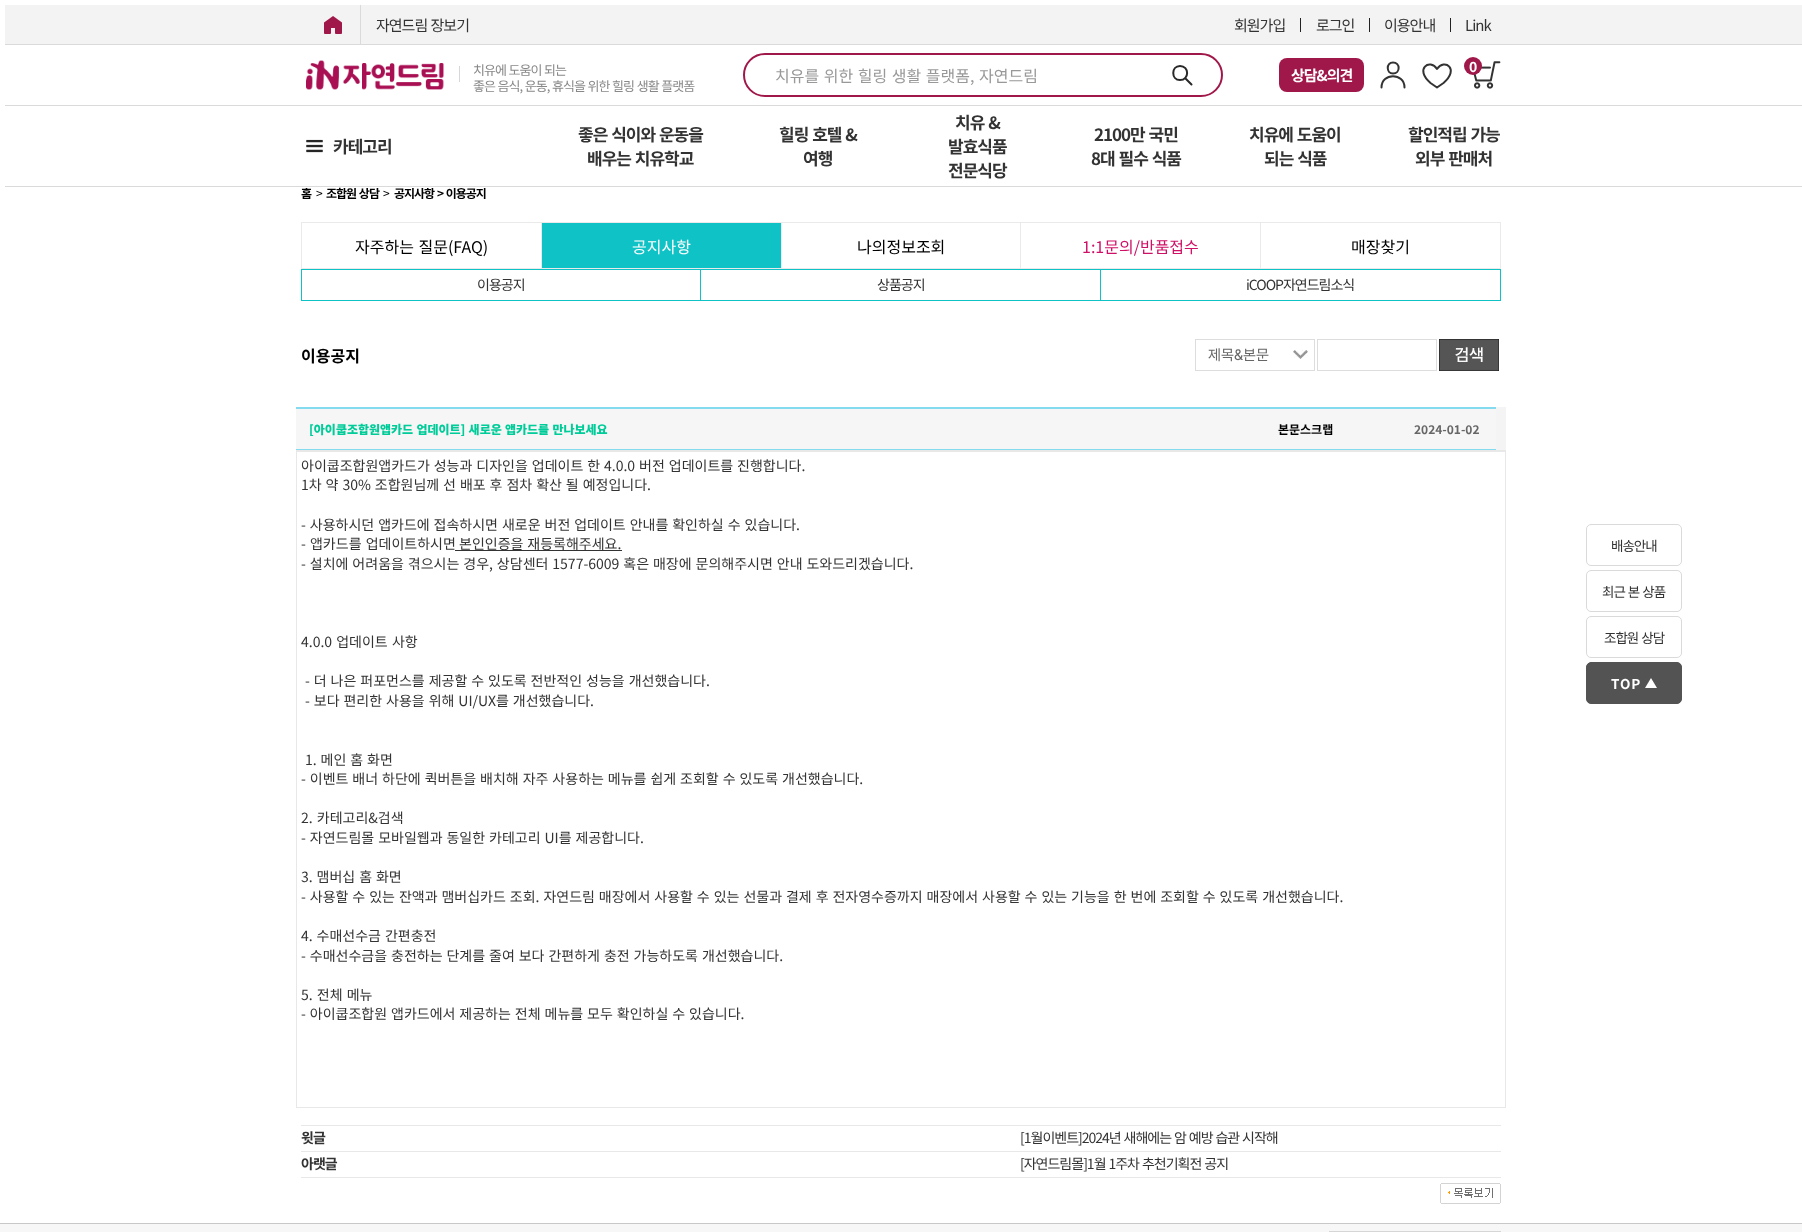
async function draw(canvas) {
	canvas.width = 1802;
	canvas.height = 1232;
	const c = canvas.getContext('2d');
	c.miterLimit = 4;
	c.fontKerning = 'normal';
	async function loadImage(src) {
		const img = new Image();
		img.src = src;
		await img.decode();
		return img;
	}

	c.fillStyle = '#fff';
	c.fillRect(0, 0, 1802, 1232);
	c.fillStyle = '#f3f3f3';
	c.fillRect(5, 5, 1797, 39);
	c.fillStyle = '#dadada';
	c.fillRect(5, 44, 1797, 1);
	c.drawImage(await loadImage('img1.png'), 324, 16, 18, 18);
	c.fillRect(360, 5, 1, 39);
	c.letterSpacing = '-1px';
	c.wordSpacing = '1px';
	c.font = '15px Noto Sans KR';
	c.fillStyle = '#333';
	c.fillText('자연드림 장보기', 376, 31);
	c.wordSpacing = '0px';
	c.fillText('회원가입', 1234, 31);
	c.fillStyle = '#222';
	c.fillRect(1300, 18, 1, 14);
	c.fillStyle = '#333';
	c.fillText('로그인', 1316, 31);
	c.fillStyle = '#222';
	c.fillRect(1369, 18, 1, 14);
	c.fillStyle = '#333';
	c.fillText('이용안내', 1384, 31);
	c.fillStyle = '#222';
	c.fillRect(1450, 18, 1, 14);
	c.fillStyle = '#333';
	c.fillText('Link', 1465, 31);
	c.fillStyle = '#dadada';
	c.fillRect(5, 105, 1797, 1);
	c.drawImage(await loadImage('img2.png'), 306, 60, 138, 30);
	c.fillStyle = '#d7d7d9';
	c.fillRect(459, 66, 1, 16);
	c.wordSpacing = '0.75px';
	c.font = '13px Noto Sans KR';
	c.fillStyle = '#888';
	c.fillText('치유에 도움이 되는', 473, 75);
	c.fillText('좋은 음식, 운동, 휴식을 위한 힐링 생활 플랫폼', 473, 91);
	c.beginPath();
	c.roundRect(744, 54, 478, 42, 21);
	c.strokeStyle = '#a01749';
	c.lineWidth = 2;
	c.stroke();
	c.letterSpacing = '0px';
	c.wordSpacing = '1px';
	c.font = '16px Noto Sans KR';
	c.fillStyle = '#999';
	c.fillText('치유를 위한 힐링 생활 플랫폼, 자연드림', 775, 82);
	c.beginPath();
	c.moveTo(1185, 78);
	c.lineTo(1191.5, 84.5);
	c.moveTo(1180, 80);
	c.bezierCurveTo(1189.5, 80, 1189.5, 66, 1180, 66);
	c.bezierCurveTo(1171, 66, 1171, 80, 1180, 80);
	c.closePath();
	c.strokeStyle = '#282828';
	c.lineCap = 'round';
	c.lineJoin = 'round';
	c.stroke();
	c.fillStyle = '#a01749';
	c.beginPath();
	c.roundRect(1279, 58, 85, 34, 8);
	c.fill();
	c.letterSpacing = '-1px';
	c.wordSpacing = '0px';
	c.font = 'bold 15px Noto Sans KR';
	c.fillStyle = '#fff';
	c.fillText('상담&의견', 1291, 81);
	c.beginPath();
	c.moveTo(1381.5, 87.5);
	c.bezierCurveTo(1381.5, 72.5, 1404.5, 72.5, 1404.5, 87.5);
	c.moveTo(1393, 73.5);
	c.bezierCurveTo(1400.5, 73.5, 1400.5, 62.5, 1393, 62.5);
	c.bezierCurveTo(1386, 62.5, 1386, 73.5, 1393, 73.5);
	c.closePath();
	c.strokeStyle = '#333';
	c.stroke();
	c.beginPath();
	c.moveTo(1437, 69);
	c.bezierCurveTo(1430, 58, 1414, 69, 1430.5, 83);
	c.lineTo(1437, 87.5);
	c.lineTo(1443.5, 83);
	c.bezierCurveTo(1460, 69, 1444.5, 58, 1437, 69);
	c.closePath();
	c.stroke();
	c.drawImage(await loadImage('img3.png'), 1473, 61, 28, 28);
	c.fillStyle = '#a01749';
	c.beginPath();
	c.arc(1473, 66, 9, 0, 2 * Math.PI);
	c.fill();
	c.font = 'bold 14px Noto Sans KR';
	c.fillStyle = '#fff';
	c.fillText('0', 1469, 72);
	c.fillStyle = '#dadada';
	c.fillRect(5, 186, 1797, 1);
	c.drawImage(await loadImage('img4.png'), 306, 139, 17, 14);
	c.font = 'bold 17px Noto Sans KR';
	c.fillStyle = '#333';
	c.fillText('카테고리', 333, 153);
	c.wordSpacing = '1px';
	for (const [text, x, y] of [
		['좋은 식이와 운동을', 578, 141],
		['배우는 치유학교', 587, 165],
		['힐링 호텔 &', 779, 141],
	]) {
		c.fillText(text, x, y);
	}
	c.wordSpacing = '0px';
	c.fillText('여행', 803, 165);
	c.wordSpacing = '1px';
	c.fillText('치유 &', 955, 129);
	c.wordSpacing = '0px';
	c.fillText('발효식품', 948, 153);
	c.fillText('전문식당', 948, 177);
	c.wordSpacing = '1px';
	for (const [text, x, y] of [
		['2100만 국민', 1094, 141],
		['8대 필수 식품', 1091, 165],
		['치유에 도움이', 1249, 141],
		['되는 식품', 1264, 165],
		['할인적립 가능', 1408, 141],
		['외부 판매처', 1415, 165],
	]) {
		c.fillText(text, x, y);
	}
	c.wordSpacing = '0px';
	c.font = 'bold 12px Noto Sans KR';
	c.fillStyle = '#000';
	c.fillText('홈', 301, 198);
	c.font = '12px Noto Sans KR';
	c.fillText('>', 316, 198);
	c.wordSpacing = '1px';
	c.font = 'bold 12px Noto Sans KR';
	c.fillText('조합원 상담', 326, 198);
	c.wordSpacing = '0px';
	c.font = '12px Noto Sans KR';
	c.fillText('>', 383, 198);
	c.wordSpacing = '1px';
	c.font = 'bold 12px Noto Sans KR';
	c.fillText('공지사항 > 이용공지', 394, 198);
	c.fillStyle = '#eaeaea';
	c.fillRect(301, 222, 1200, 47);
	c.fillStyle = '#fff';
	c.fillRect(302, 223, 239, 45);
	c.letterSpacing = '0px';
	c.font = '16px Noto Sans KR';
	c.fillStyle = '#000';
	c.fillText('자주하는 질문(FAQ)', 355, 253);
	c.fillStyle = '#0fc2c6';
	c.fillRect(542, 223, 239, 45);
	c.wordSpacing = '0px';
	c.fillStyle = '#fff';
	c.fillText('공지사항', 632, 253);
	c.fillRect(782, 223, 238, 45);
	c.fillStyle = '#000';
	c.fillText('나의정보조회', 857, 253);
	c.fillStyle = '#fff';
	c.fillRect(1021, 223, 239, 45);
	c.fillStyle = '#ce1066';
	c.fillText('1:1문의/반품접수', 1082, 253);
	c.fillStyle = '#fff';
	c.fillRect(1261, 223, 239, 45);
	c.fillStyle = '#000';
	c.fillText('매장찾기', 1351, 253);
	c.fillStyle = '#0fc2c6';
	c.fillRect(301, 269, 1200, 1);
	c.fillRect(301, 270, 1, 31);
	c.letterSpacing = '-1px';
	c.font = '14px Noto Sans KR';
	c.fillStyle = '#333';
	c.fillText('이용공지', 477, 290);
	c.fillStyle = '#0fc2c6';
	c.fillRect(700, 270, 1, 30);
	c.fillStyle = '#333';
	c.fillText('상품공지', 877, 290);
	c.fillStyle = '#0fc2c6';
	c.fillRect(1100, 270, 1, 30);
	c.fillStyle = '#333';
	c.fillText('iCOOP자연드림소식', 1246, 290);
	c.fillStyle = '#0fc2c6';
	c.fillRect(1500, 270, 1, 30);
	c.fillRect(302, 300, 1199, 1);
	c.letterSpacing = '0px';
	c.font = 'bold 16px Noto Sans KR';
	c.fillStyle = '#000';
	c.fillText('이용공지', 301, 362);
	c.drawImage(await loadImage('img5.png'), 1293, 350, 15, 9);
	c.strokeStyle = '#ddd';
	c.lineWidth = 1;
	c.lineJoin = 'miter';
	c.strokeRect(1195.5, 339.5, 119, 31);
	c.font = '15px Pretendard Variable';
	c.fillStyle = '#666';
	c.fillText('제목&본문', 1208, 360);
	c.strokeRect(1317.5, 339.5, 119, 31);
	c.drawImage(await loadImage('img6.png'), 1439, 339, 60, 32);
	for (const [x, y, w, h, color] of [
		[1496, 407, 10, 43, '#f4f4f4'],
		[296, 409, 1200, 40, '#f6f6f6'],
		[296, 407, 1200, 2, '#84dbef'],
		[296, 449, 1200, 1, '#84dbef'],
	]) {
		c.fillStyle = color;
		c.fillRect(x, y, w, h);
	}
	c.wordSpacing = '0.5px';
	c.font = '900 12px Noto Sans KR';
	c.fillStyle = '#0c9';
	c.fillText('[아이쿱조합원앱카드 업데이트] 새로운 앱카드를 만나보세요', 309, 434);
	c.wordSpacing = '0px';
	c.font = 'bold 12px Noto Sans KR';
	c.fillStyle = '#000';
	c.fillText('본문스크랩', 1278, 434);
	c.fillStyle = '#666';
	c.fillText('2024-01-02', 1414, 434);
	c.fillStyle = '#e8e8e8';
	c.fillRect(296, 450, 1210, 658);
	c.fillStyle = '#fff';
	c.fillRect(297, 452, 1208, 655);
	c.wordSpacing = '0.8px';
	c.font = '14px Noto Sans KR';
	c.fillStyle = '#333';
	for (const [text, x, y] of [
		['아이쿱조합원앱카드가 성능과 디자인을 업데이트 한 4.0.0 버전 업데이트를 진행합니다.', 301, 471],
		['1차 약 30% 조합원님께 선 배포 후 점차 확산 될 예정입니다.', 301, 490],
		['- 사용하시던 앱카드에 접속하시면 새로운 버전 업데이트 안내를 확인하실 수 있습니다.', 301, 530],
	]) {
		c.fillText(text, x, y);
	}
	c.wordSpacing = '1px';
	c.fillText('- 앱카드를 업데이트하시면', 301, 549);
	c.fillRect(455, 550, 167, 1);
	c.wordSpacing = '0.8px';
	c.fillText('본인인증을 재등록해주세요.', 459, 549);
	c.fillText('- 설치에 어려움을 겪으시는 경우, 상담센터 1577-6009 혹은 매장에 문의해주시면 안내 도와드리겠습니다.', 301, 569);
	c.wordSpacing = '1px';
	c.fillText('4.0.0 업데이트 사항', 301, 647);
	c.wordSpacing = '0.8px';
	for (const [text, x, y] of [
		['- 더 나은 퍼포먼스를 제공할 수 있도록 전반적인 성능을 개선했습니다.', 305, 686],
		['- 보다 편리한 사용을 위해 UI/UX를 개선했습니다.', 305, 706],
		['1. 메인 홈 화면', 305, 765],
		['- 이벤트 배너 하단에 퀵버튼을 배치해 자주 사용하는 메뉴를 쉽게 조회할 수 있도록 개선했습니다.', 301, 784],
	]) {
		c.fillText(text, x, y);
	}
	c.wordSpacing = '1px';
	c.fillText('2. 카테고리&검색', 301, 823);
	c.wordSpacing = '0.8px';
	for (const [text, x, y] of [
		['- 자연드림몰 모바일웹과 동일한 카테고리 UI를 제공합니다.', 301, 843],
		['3. 맴버십 홈 화면', 301, 882],
		['- 사용할 수 있는 잔액과 맴버십카드 조회. 자연드림 매장에서 사용할 수 있는 선물과 결제 후 전자영수증까지 매장에서 사용할 수 있는 기능을 한 번에 조회할 수 있도록 개선했습니다.', 301, 902],
		['4. 수매선수금 간편충전', 301, 941],
		['- 수매선수금을 충전하는 단계를 줄여 보다 간편하게 충전 가능하도록 개선했습니다.', 301, 961],
	]) {
		c.fillText(text, x, y);
	}
	c.wordSpacing = '1px';
	c.fillText('5. 전체 메뉴', 301, 1000);
	c.wordSpacing = '0.8px';
	c.fillText('- 아이쿱조합원 앱카드에서 제공하는 전체 메뉴를 모두 확인하실 수 있습니다.', 301, 1019);
	c.beginPath();
	c.roundRect(1586.5, 524.5, 95, 41, 4.5);
	c.strokeStyle = '#dadada';
	c.stroke();
	c.letterSpacing = '-1px';
	c.wordSpacing = '0px';
	c.font = '13.5px Noto Sans KR';
	c.fillText('배송안내', 1611, 551);
	c.beginPath();
	c.roundRect(1586.5, 570.5, 95, 41, 4.5);
	c.stroke();
	c.wordSpacing = '1px';
	c.fillText('최근 본 상품', 1602, 597);
	c.beginPath();
	c.roundRect(1586.5, 616.5, 95, 41, 4.5);
	c.stroke();
	c.fillText('조합원 상담', 1604, 643);
	c.fillStyle = '#535353';
	c.beginPath();
	c.roundRect(1586.5, 662.5, 95, 41, 4.5);
	c.fill();
	c.strokeStyle = '#535353';
	c.stroke();
	c.drawImage(await loadImage('img7.png'), 1645, 678, 12, 10);
	c.letterSpacing = '1px';
	c.wordSpacing = '0px';
	c.font = 'bold 13.5px Noto Sans KR';
	c.fillStyle = '#fff';
	c.fillText('TOP', 1611, 689);
	c.fillStyle = '#e8e8e8';
	c.fillRect(301, 1125, 1200, 1);
	c.letterSpacing = '-1px';
	c.font = 'bold 14px Noto Sans KR';
	c.fillStyle = '#333';
	c.fillText('윗글', 301, 1143);
	c.wordSpacing = '0.75px';
	c.font = '14px Noto Sans KR';
	c.fillText('[1월이벤트]2024년 새해에는 암 예방 습관 시작해', 1020, 1143);
	c.fillStyle = '#e8e8e8';
	c.fillRect(301, 1151, 1200, 1);
	c.wordSpacing = '0px';
	c.font = 'bold 14px Noto Sans KR';
	c.fillStyle = '#333';
	c.fillText('아랫글', 301, 1169);
	c.wordSpacing = '0.8px';
	c.font = '14px Noto Sans KR';
	c.fillText('[자연드림몰]1월 1주차 추천기획전 공지', 1020, 1169);
	c.fillStyle = '#e8e8e8';
	c.fillRect(301, 1177, 1200, 1);
	c.drawImage(await loadImage('img8.png'), 1440, 1183, 61, 21);
	c.fillStyle = '#c8c8c8';
	c.fillRect(0, 1223, 1802, 1);
	c.fillStyle = '#f7f7f7';
	c.fillRect(0, 1224, 1802, 8);
	c.strokeStyle = '#d6d6d6';
	c.strokeRect(1329.5, 1231.5, 171, 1);
}

draw(document.querySelector('canvas'));
